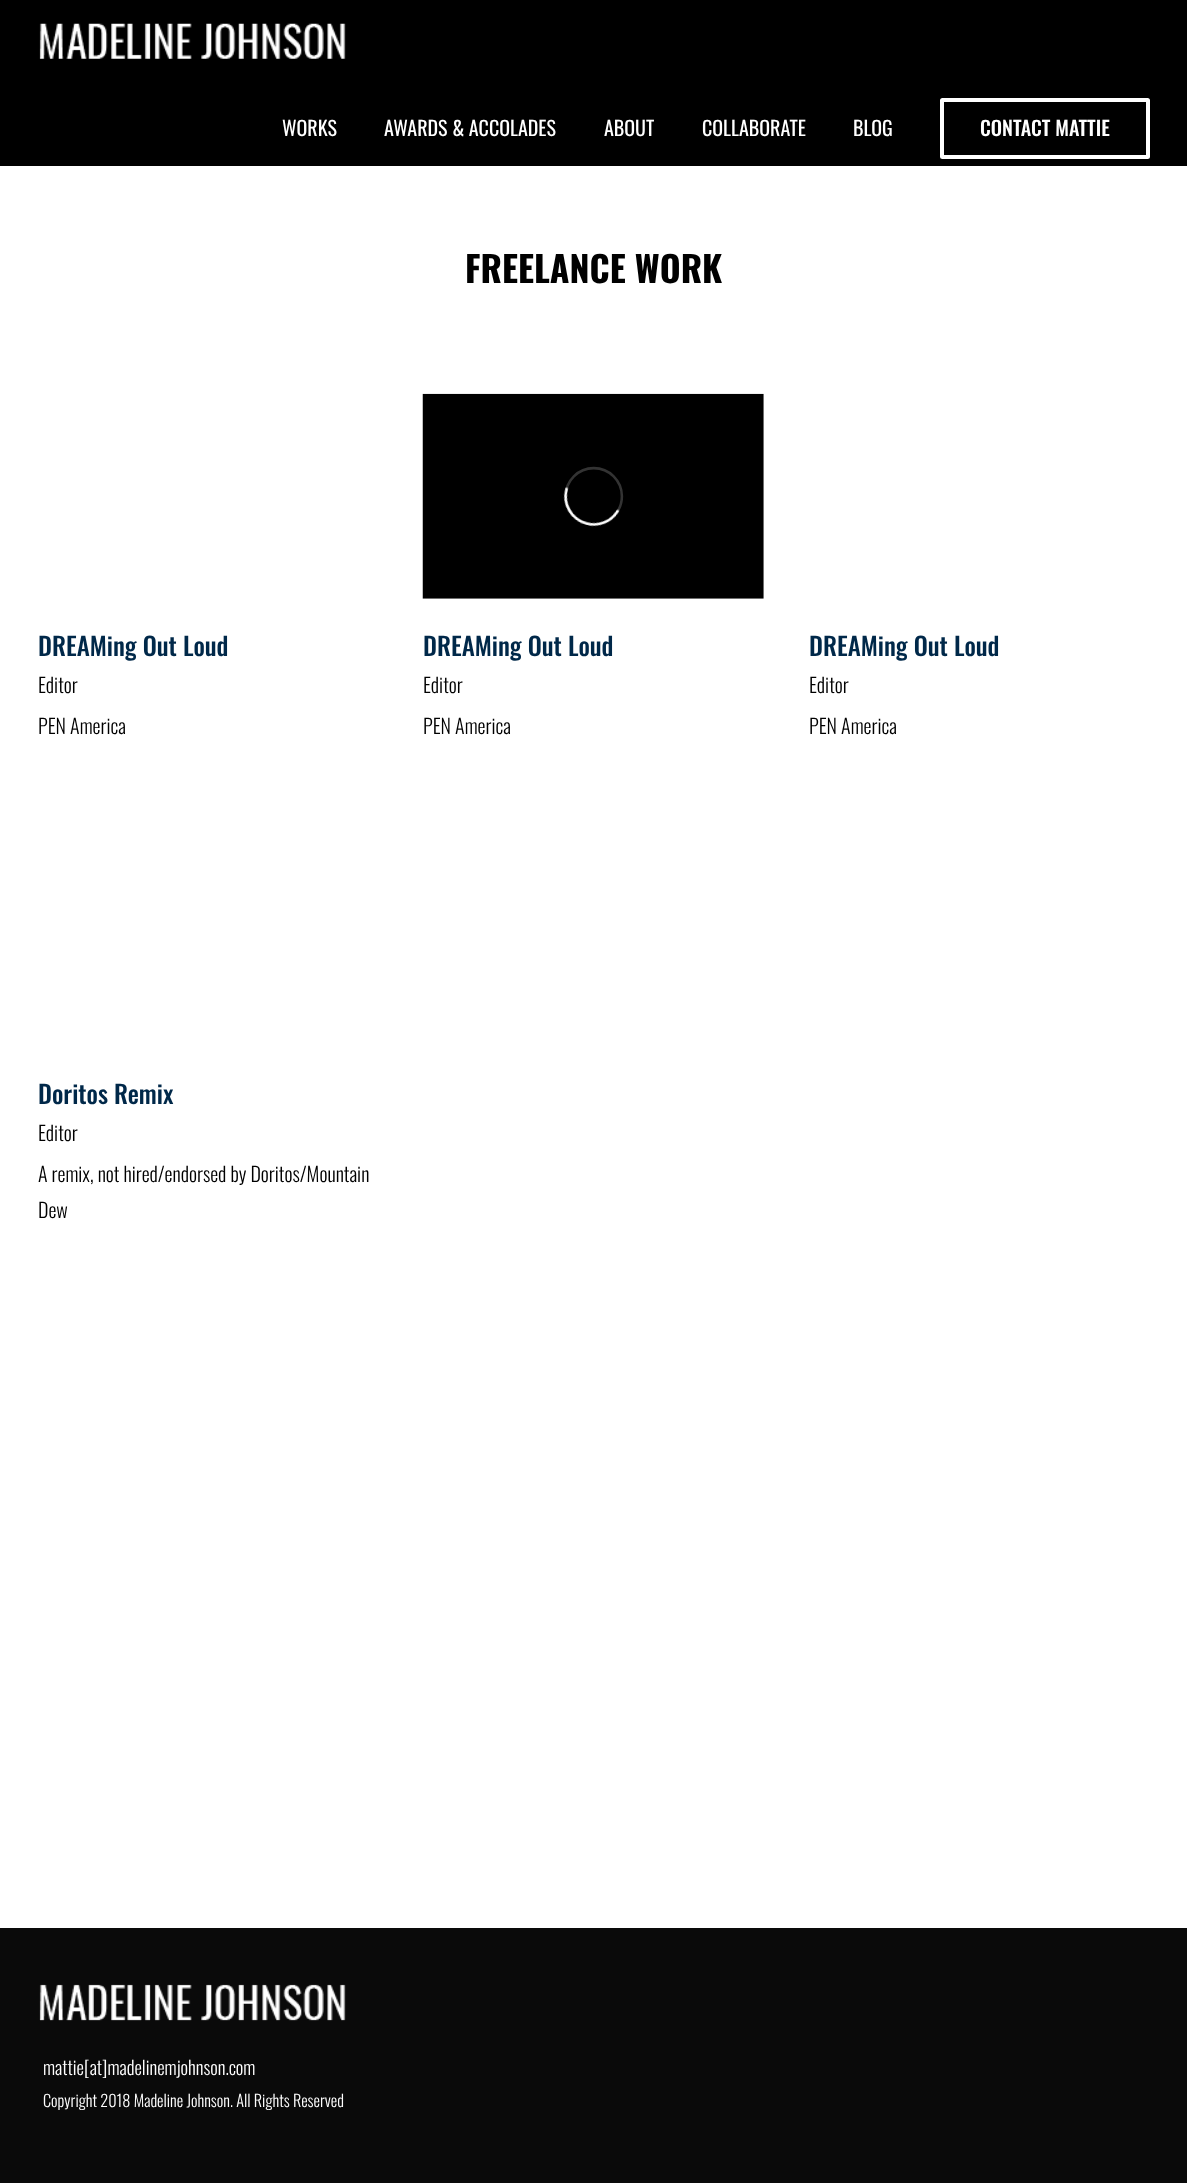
async function draw(canvas) {
	canvas.width = 1187;
	canvas.height = 2183;
	const c = canvas.getContext('2d');
	c.miterLimit = 4;
	c.fontKerning = 'normal';
	async function loadImage(src) {
		const img = new Image();
		img.src = src;
		await img.decode();
		return img;
	}

	c.fillStyle = '#fff';
	c.fillRect(0, 0, 1187, 2183);
	c.fillStyle = '#000';
	c.fillRect(0, 0, 1187, 166);
	c.drawImage(await loadImage('img1.png'), 39, 23, 307, 36);
	c.font = '20px Oswald';
	c.fillStyle = '#fff';
	for (const [text, x, y] of [
		['WORKS', 282, 136],
		['AWARDS & ACCOLADES', 384, 136],
		['ABOUT', 604, 136],
		['COLLABORATE', 702, 136],
		['BLOG', 853, 136],
	]) {
		c.fillText(text, x, y);
	}
	c.beginPath();
	c.roundRect(942, 100, 206, 57, 0.5);
	c.strokeStyle = '#fff';
	c.lineWidth = 4;
	c.stroke();
	c.font = '500 20px Oswald';
	c.fillText('CONTACT MATTIE', 980, 136);
	c.font = 'bold 35.75px Oswald';
	c.fillStyle = '#000';
	c.fillText('FREELANCE WORK', 465, 283);
	c.font = '500 25px Oswald';
	c.fillStyle = '#002849';
	c.fillText('DREAMing Out Loud', 38, 656);
	c.font = '300 20px Oswald';
	c.fillStyle = '#000';
	c.fillText('Editor', 38, 693);
	c.fillText('PEN America', 38, 734);
	c.drawImage(await loadImage('img2.png'), 422, 393, 342, 206);
	c.font = '500 25px Oswald';
	c.fillStyle = '#002849';
	c.fillText('DREAMing Out Loud', 423, 656);
	c.font = '300 20px Oswald';
	c.fillStyle = '#000';
	c.fillText('Editor', 423, 693);
	c.fillText('PEN America', 423, 734);
	c.font = '500 25px Oswald';
	c.fillStyle = '#002849';
	c.fillText('DREAMing Out Loud', 809, 656);
	c.font = '300 20px Oswald';
	c.fillStyle = '#000';
	c.fillText('Editor', 809, 693);
	c.fillText('PEN America', 809, 734);
	c.font = '500 25px Oswald';
	c.fillStyle = '#002849';
	c.fillText('Doritos Remix', 38, 1104);
	c.font = '300 20px Oswald';
	c.fillStyle = '#000';
	for (const [text, x, y] of [
		['Editor', 38, 1141],
		['A remix, not hired/endorsed by Doritos/Mountain', 38, 1182],
		['Dew', 38, 1218],
	]) {
		c.fillText(text, x, y);
	}
	c.fillStyle = '#0a0a0a';
	c.fillRect(0, 1928, 1187, 255);
	c.drawImage(await loadImage('img3.png'), 39, 1984, 307, 37);
	c.font = '300 18.75px Oswald';
	c.fillStyle = '#fff';
	c.fillText('mattie[at]madelinemjohnson.com', 43, 2075);
	c.font = '300 16.25px Oswald';
	c.fillText('Copyright 2018 Madeline Johnson. All Rights Reserved', 43, 2107);
}

draw(document.querySelector('canvas'));
